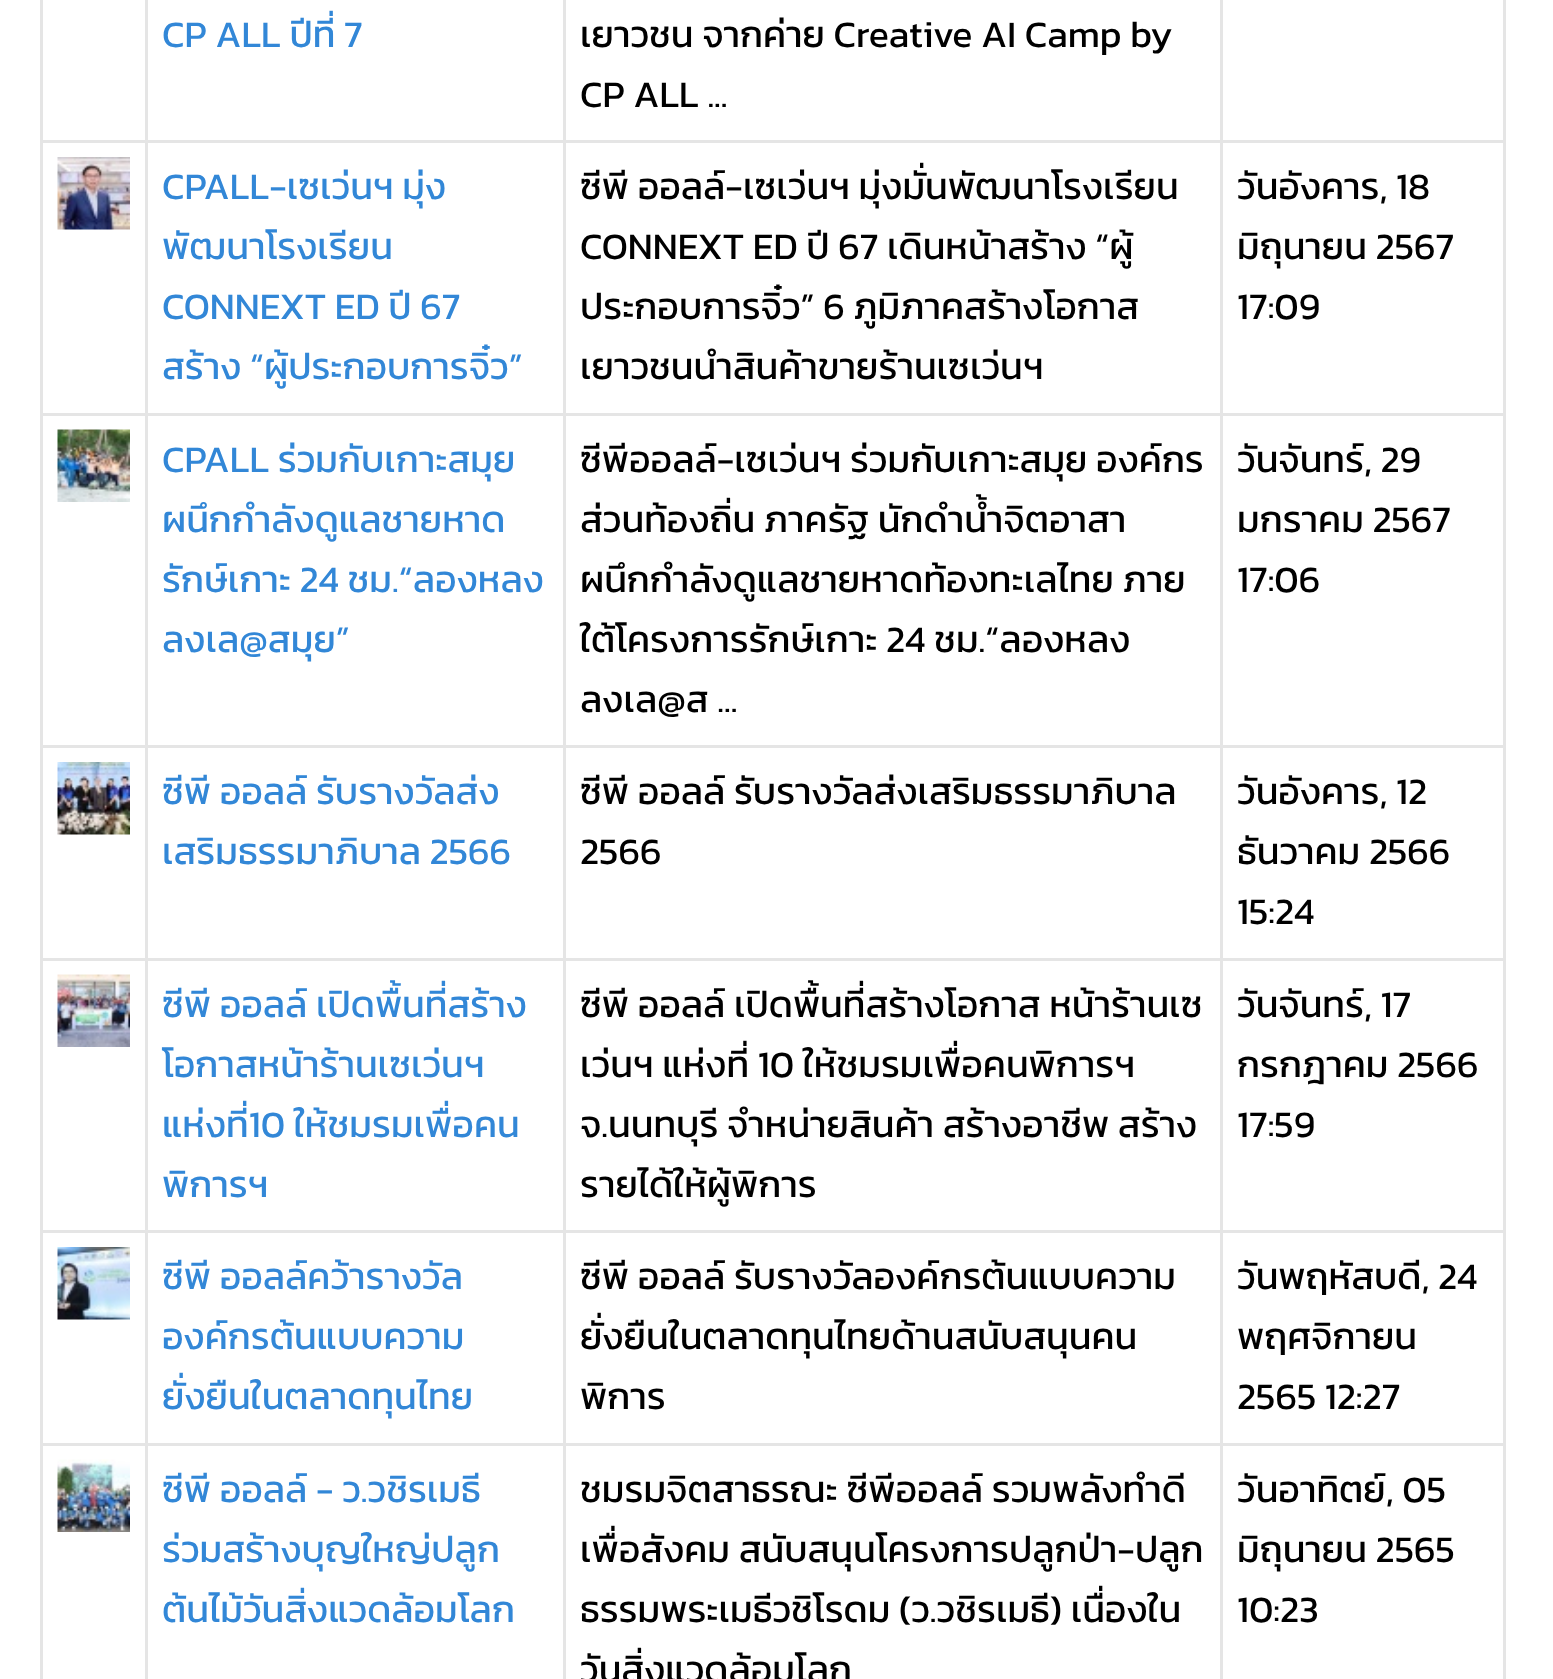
async function draw(canvas) {
	canvas.width = 1553;
	canvas.height = 1679;
	const c = canvas.getContext('2d');
	c.miterLimit = 4;
	c.fontKerning = 'normal';
	async function loadImage(src) {
		const img = new Image();
		img.src = src;
		await img.decode();
		return img;
	}

	c.fillStyle = '#fff';
	c.fillRect(0, 0, 1553, 1679);
	for (const [x, y, w, h, color] of [
		[1503, 0, 3, 1679, '#e5e5e5'],
		[40, 0, 3, 1679, '#e5e5e5'],
		[1220, 1443, 3, 236, '#e5e5e5'],
		[1220, 1443, 285, 3, '#e5e5e5'],
		[1220, 1230, 3, 215, '#e5e5e5'],
		[1220, 1230, 285, 3, '#e5e5e5'],
		[1220, 958, 3, 275, '#e5e5e5'],
		[1220, 958, 285, 3, '#e5e5e5'],
		[1220, 745, 3, 215, '#e5e5e5'],
		[1220, 745, 285, 3, '#e5e5e5'],
		[1220, 413, 3, 335, '#e5e5e5'],
		[1220, 413, 285, 3, '#e5e5e5'],
		[1220, 140, 3, 275, '#e5e5e5'],
		[1220, 140, 285, 3, '#e5e5e5'],
		[1220, 0, 3, 143, '#e5e5e5'],
		[563, 1443, 3, 236, '#e5e5e5'],
		[563, 1443, 660, 3, '#e5e5e5'],
		[563, 1230, 3, 215, '#e5e5e5'],
		[563, 1230, 660, 3, '#e5e5e5'],
		[563, 958, 3, 275, '#e5e5e5'],
		[563, 958, 660, 3, '#e5e5e5'],
		[563, 745, 3, 215, '#e5e5e5'],
		[563, 745, 660, 3, '#e5e5e5'],
		[563, 413, 3, 335, '#e5e5e5'],
		[563, 413, 660, 3, '#e5e5e5'],
		[563, 140, 3, 275, '#e5e5e5'],
		[563, 140, 660, 3, '#e5e5e5'],
		[563, 0, 3, 143, '#e5e5e5'],
		[145, 1443, 3, 236, '#e5e5e5'],
		[145, 1443, 420, 3, '#e5e5e5'],
		[145, 1230, 3, 215, '#e5e5e5'],
		[145, 1230, 420, 3, '#e5e5e5'],
		[145, 958, 3, 275, '#e5e5e5'],
		[145, 958, 420, 3, '#e5e5e5'],
		[145, 745, 3, 215, '#e5e5e5'],
		[145, 745, 420, 3, '#e5e5e5'],
		[145, 413, 3, 335, '#e5e5e5'],
		[145, 413, 420, 3, '#e5e5e5'],
		[145, 140, 3, 275, '#e5e5e5'],
		[145, 140, 420, 3, '#e5e5e5'],
		[145, 0, 3, 143, '#e5e5e5'],
		[40, 140, 108, 3, '#e5e5e5'],
	]) {
		c.fillStyle = color;
		c.fillRect(x, y, w, h);
	}
	c.font = '37.5px Kanit';
	c.fillStyle = '#3287d7';
	c.fillText('CP ALL ปีที่ 7', 162, 47);
	c.fillStyle = '#000';
	c.fillText('เยาวชน จากค่าย Creative AI Camp by', 580, 47);
	c.fillText('CP ALL ...', 580, 107);
	c.fillStyle = '#e5e5e5';
	c.fillRect(40, 413, 108, 3);
	c.drawImage(await loadImage('img1.png'), 57, 157, 73, 73);
	c.fillStyle = '#3287d7';
	for (const [text, x, y] of [
		['CPALL-เซเว่นฯ มุ่ง', 162, 199],
		['พัฒนาโรงเรียน', 162, 259],
		['CONNEXT ED ปี 67', 162, 319],
		['สร้าง “ผู้ประกอบการจิ๋ว”', 162, 379],
	]) {
		c.fillText(text, x, y);
	}
	c.fillStyle = '#000';
	for (const [text, x, y] of [
		['ซีพี ออลล์-เซเว่นฯ มุ่งมั่นพัฒนาโรงเรียน', 580, 199],
		['CONNEXT ED ปี 67 เดินหน้าสร้าง “ผู้', 580, 259],
		['ประกอบการจิ๋ว” 6 ภูมิภาคสร้างโอกาส', 580, 319],
		['เยาวชนนำสินค้าขายร้านเซเว่นฯ', 580, 379],
		['วันอังคาร, 18', 1237, 199],
		['มิถุนายน 2567', 1237, 259],
		['17:09', 1237, 319],
	]) {
		c.fillText(text, x, y);
	}
	c.fillStyle = '#e5e5e5';
	c.fillRect(40, 745, 108, 3);
	c.drawImage(await loadImage('img2.png'), 57, 429, 73, 73);
	c.fillStyle = '#3287d7';
	for (const [text, x, y] of [
		['CPALL ร่วมกับเกาะสมุย', 162, 472],
		['ผนึกกำลังดูแลชายหาด', 162, 532],
		['รักษ์เกาะ 24 ชม.“ลองหลง', 162, 592],
		['ลงเล@สมุย”', 162, 652],
	]) {
		c.fillText(text, x, y);
	}
	c.fillStyle = '#000';
	for (const [text, x, y] of [
		['ซีพีออลล์-เซเว่นฯ ร่วมกับเกาะสมุย องค์กร', 580, 472],
		['ส่วนท้องถิ่น ภาครัฐ นักดำน้ำจิตอาสา', 580, 532],
		['ผนึกกำลังดูแลชายหาดท้องทะเลไทย ภาย', 580, 592],
		['ใต้โครงการรักษ์เกาะ 24 ชม.“ลองหลง', 580, 652],
		['ลงเล@ส ...', 580, 712],
		['วันจันทร์, 29', 1237, 472],
		['มกราคม 2567', 1237, 532],
		['17:06', 1237, 592],
	]) {
		c.fillText(text, x, y);
	}
	c.fillStyle = '#e5e5e5';
	c.fillRect(40, 958, 108, 3);
	c.drawImage(await loadImage('img3.png'), 57, 762, 73, 73);
	c.fillStyle = '#3287d7';
	c.fillText('ซีพี ออลล์ รับรางวัลส่ง', 162, 804);
	c.fillText('เสริมธรรมาภิบาล 2566', 162, 864);
	c.fillStyle = '#000';
	for (const [text, x, y] of [
		['ซีพี ออลล์ รับรางวัลส่งเสริมธรรมาภิบาล', 580, 804],
		['2566', 580, 864],
		['วันอังคาร, 12', 1237, 804],
		['ธันวาคม 2566', 1237, 864],
		['15:24', 1237, 924],
	]) {
		c.fillText(text, x, y);
	}
	c.fillStyle = '#e5e5e5';
	c.fillRect(40, 1230, 108, 3);
	c.drawImage(await loadImage('img4.png'), 57, 974, 73, 73);
	c.fillStyle = '#3287d7';
	for (const [text, x, y] of [
		['ซีพี ออลล์ เปิดพื้นที่สร้าง', 162, 1017],
		['โอกาสหน้าร้านเซเว่นฯ', 162, 1077],
		['แห่งที่10 ให้ชมรมเพื่อคน', 162, 1137],
		['พิการฯ', 162, 1197],
	]) {
		c.fillText(text, x, y);
	}
	c.fillStyle = '#000';
	for (const [text, x, y] of [
		['ซีพี ออลล์ เปิดพื้นที่สร้างโอกาส หน้าร้านเซ', 580, 1017],
		['เว่นฯ แห่งที่ 10 ให้ชมรมเพื่อคนพิการฯ', 580, 1077],
		['จ.นนทบุรี จําหน่ายสินค้า สร้างอาชีพ สร้าง', 580, 1137],
		['รายได้ให้ผู้พิการ', 580, 1197],
		['วันจันทร์, 17', 1237, 1017],
		['กรกฎาคม 2566', 1237, 1077],
		['17:59', 1237, 1137],
	]) {
		c.fillText(text, x, y);
	}
	c.fillStyle = '#e5e5e5';
	c.fillRect(40, 1443, 108, 3);
	c.drawImage(await loadImage('img5.png'), 57, 1247, 73, 73);
	c.fillStyle = '#3287d7';
	for (const [text, x, y] of [
		['ซีพี ออลล์คว้ารางวัล', 162, 1289],
		['องค์กรต้นแบบความ', 162, 1349],
		['ยั่งยืนในตลาดทุนไทย', 162, 1409],
	]) {
		c.fillText(text, x, y);
	}
	c.fillStyle = '#000';
	for (const [text, x, y] of [
		['ซีพี ออลล์ รับรางวัลองค์กรต้นแบบความ', 580, 1289],
		['ยั่งยืนในตลาดทุนไทยด้านสนับสนุนคน', 580, 1349],
		['พิการ', 580, 1409],
		['วันพฤหัสบดี, 24', 1237, 1289],
		['พฤศจิกายน', 1237, 1349],
		['2565 12:27', 1237, 1409],
	]) {
		c.fillText(text, x, y);
	}
	c.drawImage(await loadImage('img6.png'), 57, 1459, 73, 73);
	c.fillStyle = '#3287d7';
	for (const [text, x, y] of [
		['ซีพี ออลล์ - ว.วชิรเมธี', 162, 1502],
		['ร่วมสร้างบุญใหญ่ปลูก', 162, 1562],
		['ต้นไม้วันสิ่งแวดล้อมโลก', 162, 1622],
	]) {
		c.fillText(text, x, y);
	}
	c.fillStyle = '#000';
	for (const [text, x, y] of [
		['ชมรมจิตสาธรณะ ซีพีออลล์ รวมพลังทำดี', 580, 1502],
		['เพื่อสังคม สนับสนุนโครงการปลูกป่า-ปลูก', 580, 1562],
		['ธรรมพระเมธีวชิโรดม (ว.วชิรเมธี) เนื่องใน', 580, 1622],
		['วันสิ่งแวดล้อมโลก', 580, 1682],
		['วันอาทิตย์, 05', 1237, 1502],
		['มิถุนายน 2565', 1237, 1562],
		['10:23', 1237, 1622],
	]) {
		c.fillText(text, x, y);
	}
}

draw(document.querySelector('canvas'));
